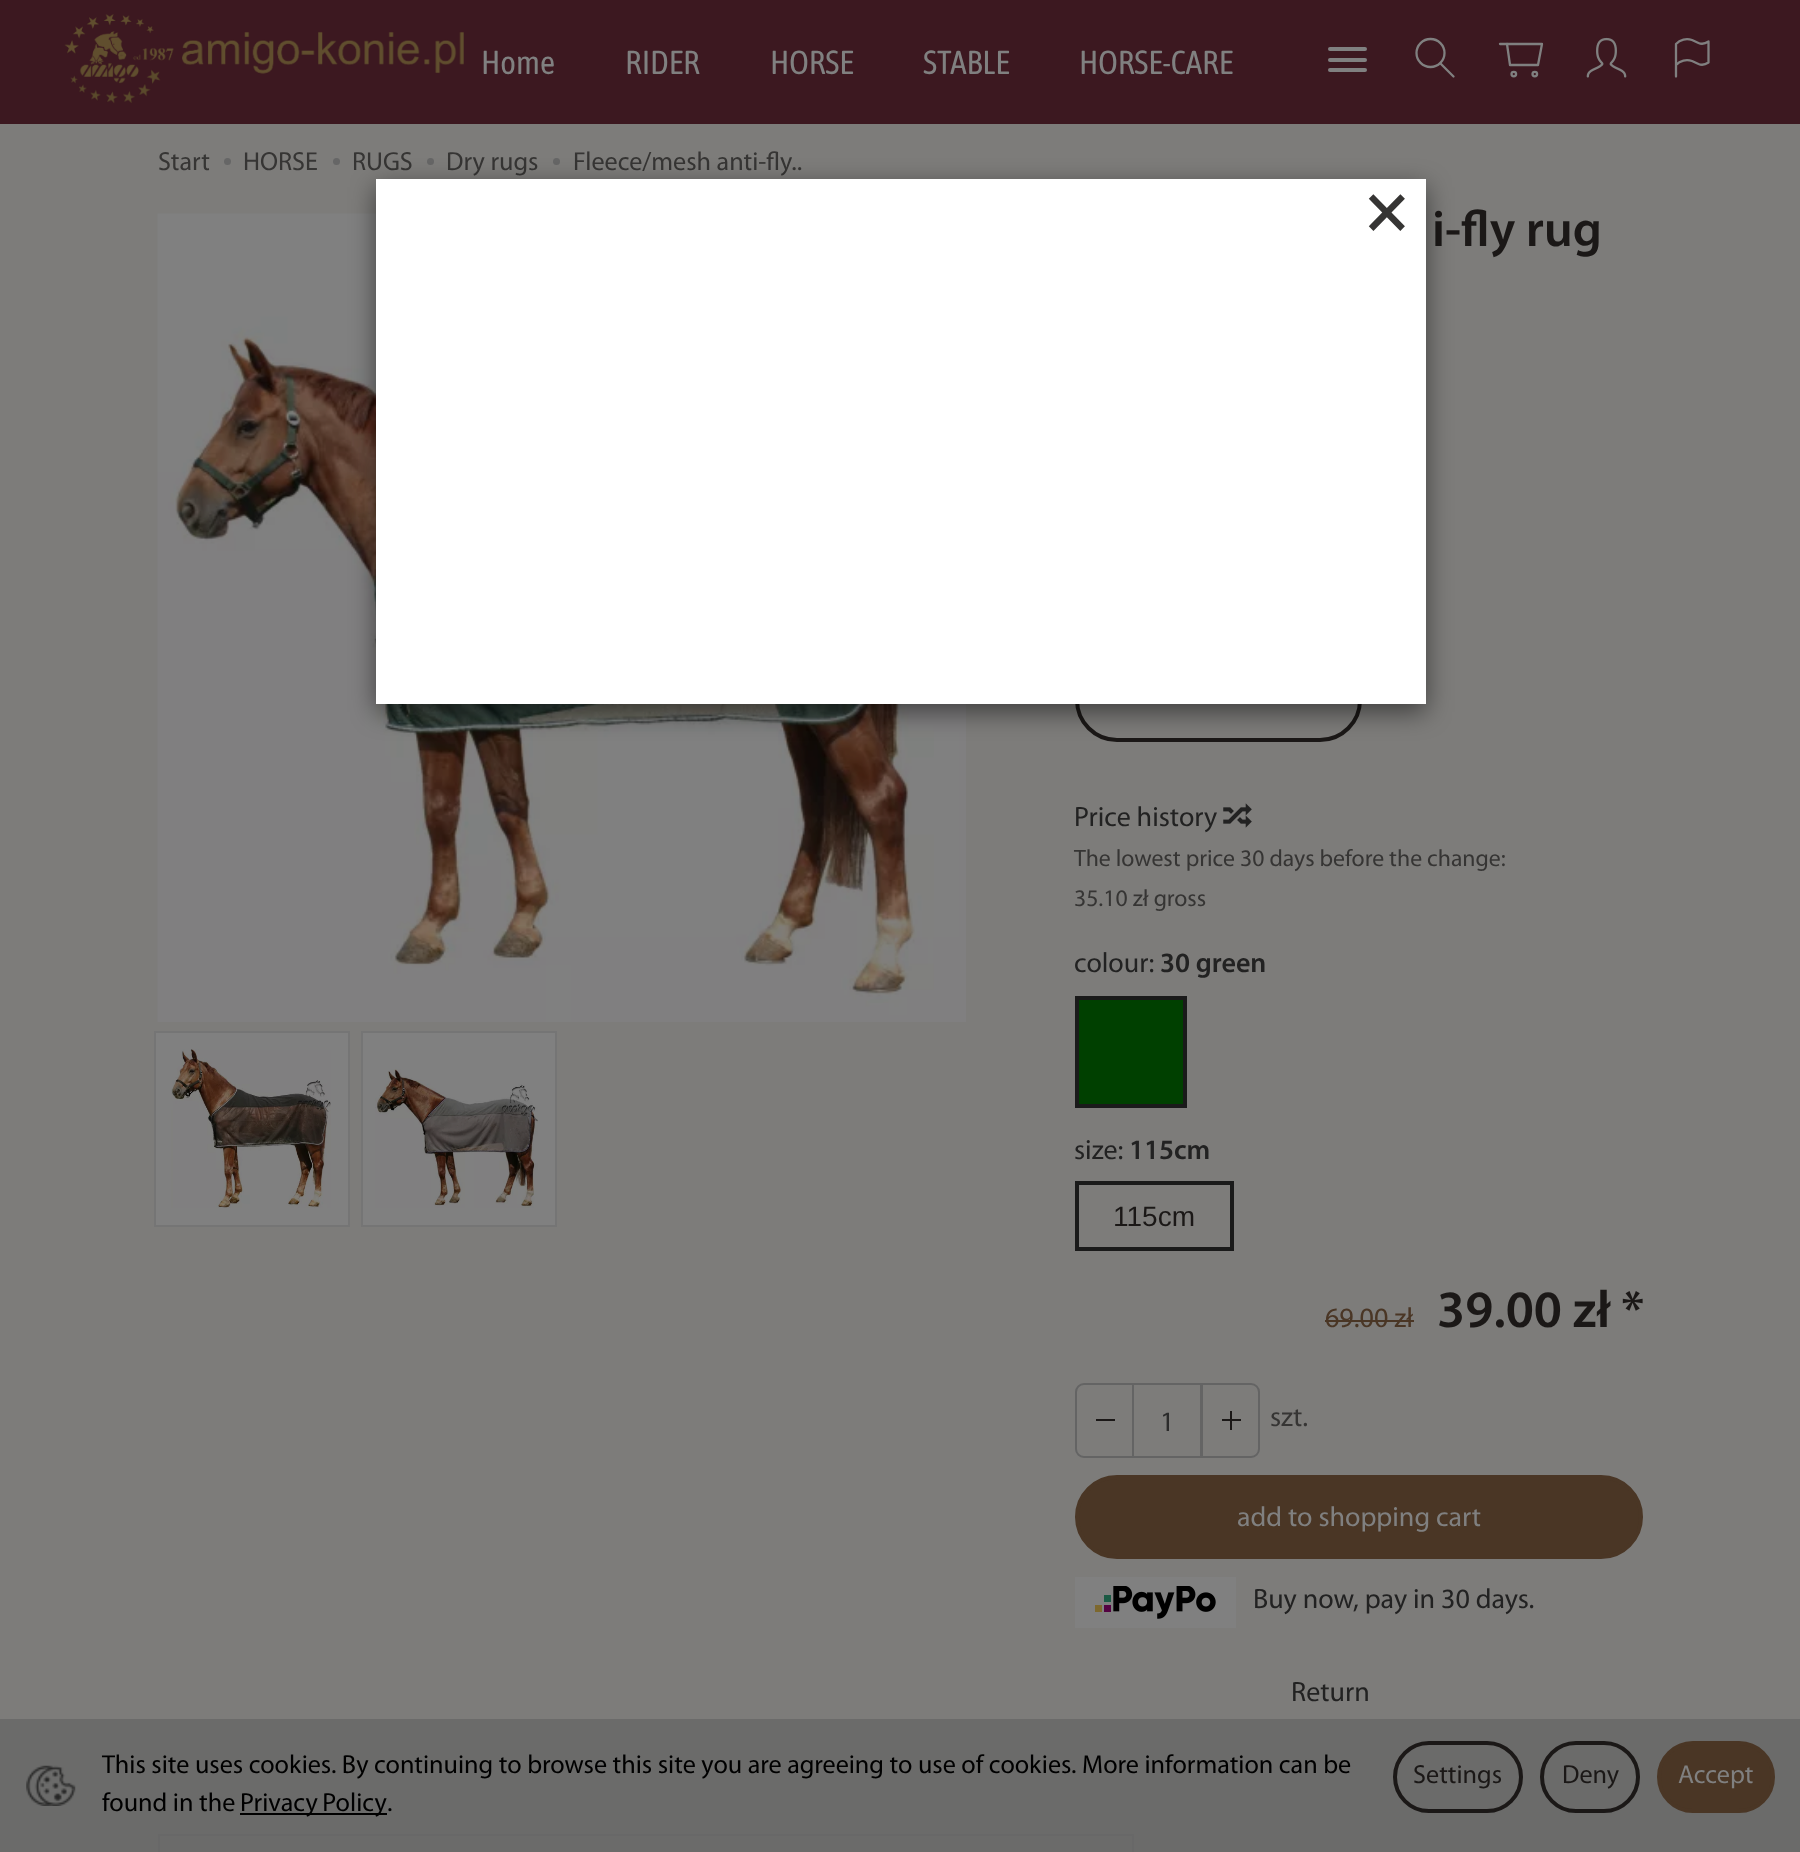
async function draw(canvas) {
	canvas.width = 1800;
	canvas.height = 1852;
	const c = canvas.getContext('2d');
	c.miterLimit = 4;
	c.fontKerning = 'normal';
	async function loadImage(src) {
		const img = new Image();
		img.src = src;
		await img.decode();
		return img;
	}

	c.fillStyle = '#7d7c7a';
	c.fillRect(0, 0, 1800, 1852);
	c.fillStyle = '#6b6b6a';
	c.fillRect(0, 1719, 1800, 133);
	c.fillStyle = '#3c1820';
	c.fillRect(0, 0, 1800, 124);
	c.drawImage(await loadImage('img1.png'), 64, 14, 400, 90);
	c.font = '33.25px Asap Condensed';
	c.fillStyle = '#808080';
	for (const [text, x, y] of [
		['Home', 481, 74],
		['RIDER', 625, 74],
		['HORSE', 770, 74],
		['STABLE', 923, 74],
		['HORSE-CARE', 1079, 74],
	]) {
		c.fillText(text, x, y);
	}
	c.beginPath();
	c.roundRect(1328, 47, 39, 4, 2);
	c.fill();
	c.beginPath();
	c.roundRect(1328, 58, 39, 4, 2);
	c.fill();
	c.beginPath();
	c.roundRect(1328, 68, 39, 4, 2);
	c.fill();
	c.beginPath();
	c.moveTo(1440.5, 63.5);
	c.lineTo(1453.5, 76.5);
	c.strokeStyle = '#808080';
	c.lineWidth = 2.3;
	c.lineCap = 'round';
	c.lineJoin = 'round';
	c.stroke();
	c.beginPath();
	c.arc(1430.5, 53, 14, 0, 2 * Math.PI);
	c.stroke();
	c.beginPath();
	c.moveTo(1507, 44);
	c.lineTo(1542, 44);
	c.lineTo(1538, 65);
	c.lineTo(1510, 65);
	c.closePath();
	c.stroke();
	c.beginPath();
	c.moveTo(1507, 44);
	c.lineTo(1500, 44);
	c.stroke();
	c.beginPath();
	c.arc(1513.8, 74.1, 2.3, 0, 2 * Math.PI);
	c.stroke();
	c.beginPath();
	c.arc(1534.8, 74.1, 2.3, 0, 2 * Math.PI);
	c.stroke();
	c.drawImage(await loadImage('img2.png'), 1586, 37, 41, 41);
	c.beginPath();
	c.moveTo(1676, 76.5);
	c.lineTo(1676, 65);
	c.bezierCurveTo(1680, 60.5, 1686.5, 59, 1692, 61);
	c.lineTo(1698.5, 64);
	c.bezierCurveTo(1702, 65.5, 1705.5, 64.5, 1708.5, 62.5);
	c.lineTo(1708.5, 41.5);
	c.bezierCurveTo(1705.5, 43.5, 1702, 44.5, 1698.5, 43);
	c.lineTo(1692, 40);
	c.bezierCurveTo(1686.5, 38, 1680, 39.5, 1676, 44);
	c.lineTo(1676, 65);
	c.stroke();
	c.font = '26.15px Myriad';
	c.fillStyle = '#363534';
	c.fillText('Start', 158, 170);
	c.fillStyle = '#666';
	c.beginPath();
	c.arc(227.5, 161.5, 3.5, 0, 2 * Math.PI);
	c.fill();
	c.fillStyle = '#363534';
	c.fillText('HORSE', 243, 170);
	c.fillStyle = '#666';
	c.beginPath();
	c.arc(336.5, 161.5, 3.5, 0, 2 * Math.PI);
	c.fill();
	c.fillStyle = '#363534';
	c.fillText('RUGS', 352, 170);
	c.fillStyle = '#666';
	c.beginPath();
	c.arc(430.5, 161.5, 3.5, 0, 2 * Math.PI);
	c.fill();
	c.fillStyle = '#363534';
	c.fillText('Dry rugs', 446, 170);
	c.fillStyle = '#666';
	c.beginPath();
	c.arc(556.5, 161.5, 3.5, 0, 2 * Math.PI);
	c.fill();
	c.fillStyle = '#363534';
	c.fillText('Fleece/mesh anti-fly..', 573, 170);
	c.drawImage(await loadImage('img3.png'), 157, 213, 809, 809);
	c.fillStyle = '#808080';
	c.beginPath();
	c.rect(155, 1032, 194, 194);
	c.fill();
	c.strokeStyle = '#757575';
	c.lineWidth = 2;
	c.lineJoin = 'miter';
	c.stroke();
	c.drawImage(await loadImage('img4.png'), 171, 1049, 160, 159);
	c.beginPath();
	c.rect(362, 1032, 194, 194);
	c.fill();
	c.stroke();
	c.drawImage(await loadImage('img5.png'), 375, 1069, 163, 139);
	c.font = '600 51px Myriad';
	c.fillStyle = '#1b1817';
	c.fillText('i-fly rug', 1432, 246);
	c.beginPath();
	c.roundRect(1077, 660, 283, 80, 40);
	c.strokeStyle = '#1b1817';
	c.lineWidth = 4;
	c.stroke();
	c.font = '28px Myriad';
	c.fillStyle = '#222';
	c.fillText('Price history', 1074, 826);
	c.drawImage(await loadImage('img6.png'), 1223, 803, 29, 25);
	c.font = '23.75px Myriad';
	c.fillStyle = '#363534';
	c.fillText('The lowest price 30 days before the change:', 1074, 866);
	c.fillText('35.10 zł gross', 1074, 906);
	c.font = '28px Myriad';
	c.fillStyle = '#222';
	c.fillText('colour:', 1074, 972);
	c.font = '600 28px Myriad';
	c.fillText('30 green', 1160, 972);
	c.fillStyle = '#004000';
	c.beginPath();
	c.rect(1077, 998, 108, 108);
	c.fill();
	c.strokeStyle = '#1a1a1a';
	c.stroke();
	c.font = '28px Myriad';
	c.fillStyle = '#222';
	c.fillText('size:', 1074, 1159);
	c.font = '600 28px Myriad';
	c.fillText('115cm', 1129, 1159);
	c.strokeRect(1077, 1183, 155, 66);
	c.font = '28px Liberation Sans';
	c.fillStyle = '#1b1817';
	c.fillText('115cm', 1113, 1226);
	c.font = '28px Myriad';
	c.fillStyle = '#4a3625';
	c.fillText('69.00 zł', 1325, 1327);
	c.fillRect(1325, 1320, 89, 2);
	c.font = '600 52.5px Myriad';
	c.fillStyle = '#1b1817';
	c.fillText('39.00 zł *', 1437, 1327);
	c.strokeStyle = '#646464';
	c.lineWidth = 2;
	c.strokeRect(1133, 1384, 68, 73);
	c.beginPath();
	c.roundRect(1076, 1384, 57, 73, [8, 0, 0, 8]);
	c.stroke();
	c.fillRect(1096, 1419, 19, 2);
	c.font = '28px Myriad';
	c.fillStyle = '#2b2b2b';
	c.fillText('1', 1160, 1431);
	c.beginPath();
	c.roundRect(1202, 1384, 57, 73, [0, 8, 8, 0]);
	c.stroke();
	c.fillStyle = '#1b1817';
	c.fillRect(1222, 1419, 19, 2);
	c.fillRect(1230, 1411, 2, 19);
	c.fillStyle = '#363534';
	c.fillText('szt.', 1270, 1426);
	c.fillStyle = '#4a3625';
	c.beginPath();
	c.roundRect(1077, 1477, 564, 80, 40);
	c.fill();
	c.strokeStyle = '#4a3625';
	c.lineWidth = 4;
	c.stroke();
	c.fillStyle = '#808080';
	c.fillText('add to shopping cart', 1237, 1526);
	c.fillRect(1075, 1577, 161, 51);
	c.drawImage(await loadImage('img7.png'), 1095, 1586, 121, 33);
	c.fillStyle = '#222';
	c.fillText('Buy now, pay in 30 days.', 1253, 1608);
	c.fillText('Return', 1291, 1701);
	for (const [x, y, w, h, color] of [
		[1132, 1834, 2, 18, '#686868'],
		[158, 1834, 2, 18, '#686868'],
		[158, 1834, 976, 2, '#686868'],
	]) {
		c.fillStyle = color;
		c.fillRect(x, y, w, h);
	}
	c.drawImage(await loadImage('img8.png'), 26, 1765, 50, 41);
	c.font = '26.15px Myriad';
	c.fillStyle = '#000';
	c.fillText('This site uses cookies. By continuing to browse this site you are agreeing to use of cookies. More information can be', 102, 1773);
	c.fillText('found in the', 102, 1811);
	c.fillRect(240, 1813, 147, 2);
	c.wordSpacing = '-1px';
	c.fillText('Privacy Policy', 240, 1811);
	c.wordSpacing = '0px';
	c.fillText('.', 387, 1811);
	c.beginPath();
	c.roundRect(1395, 1743, 126, 68, 34);
	c.strokeStyle = '#1b1817';
	c.stroke();
	c.fillStyle = '#1b1817';
	c.fillText('Settings', 1413, 1783);
	c.beginPath();
	c.roundRect(1542, 1743, 96, 68, 34);
	c.stroke();
	c.fillText('Deny', 1562, 1783);
	c.fillStyle = '#4a3625';
	c.beginPath();
	c.roundRect(1659, 1743, 114, 68, 34);
	c.fill();
	c.strokeStyle = '#4a3625';
	c.stroke();
	c.fillStyle = '#808080';
	c.fillText('Accept', 1678, 1783);
	c.fillStyle = '#00000080';
	c.filter = 'blur(13px)';
	c.beginPath();
	c.rect(376, 187, 1050, 525);
	c.fill();
	c.filter = 'none';
	c.fillStyle = '#fff';
	c.fillRect(376, 179, 1050, 525);
	c.font = 'bold 70px Myriad';
	c.fillStyle = '#363534';
	c.fillText('×', 1366, 231);
}

draw(document.querySelector('canvas'));
